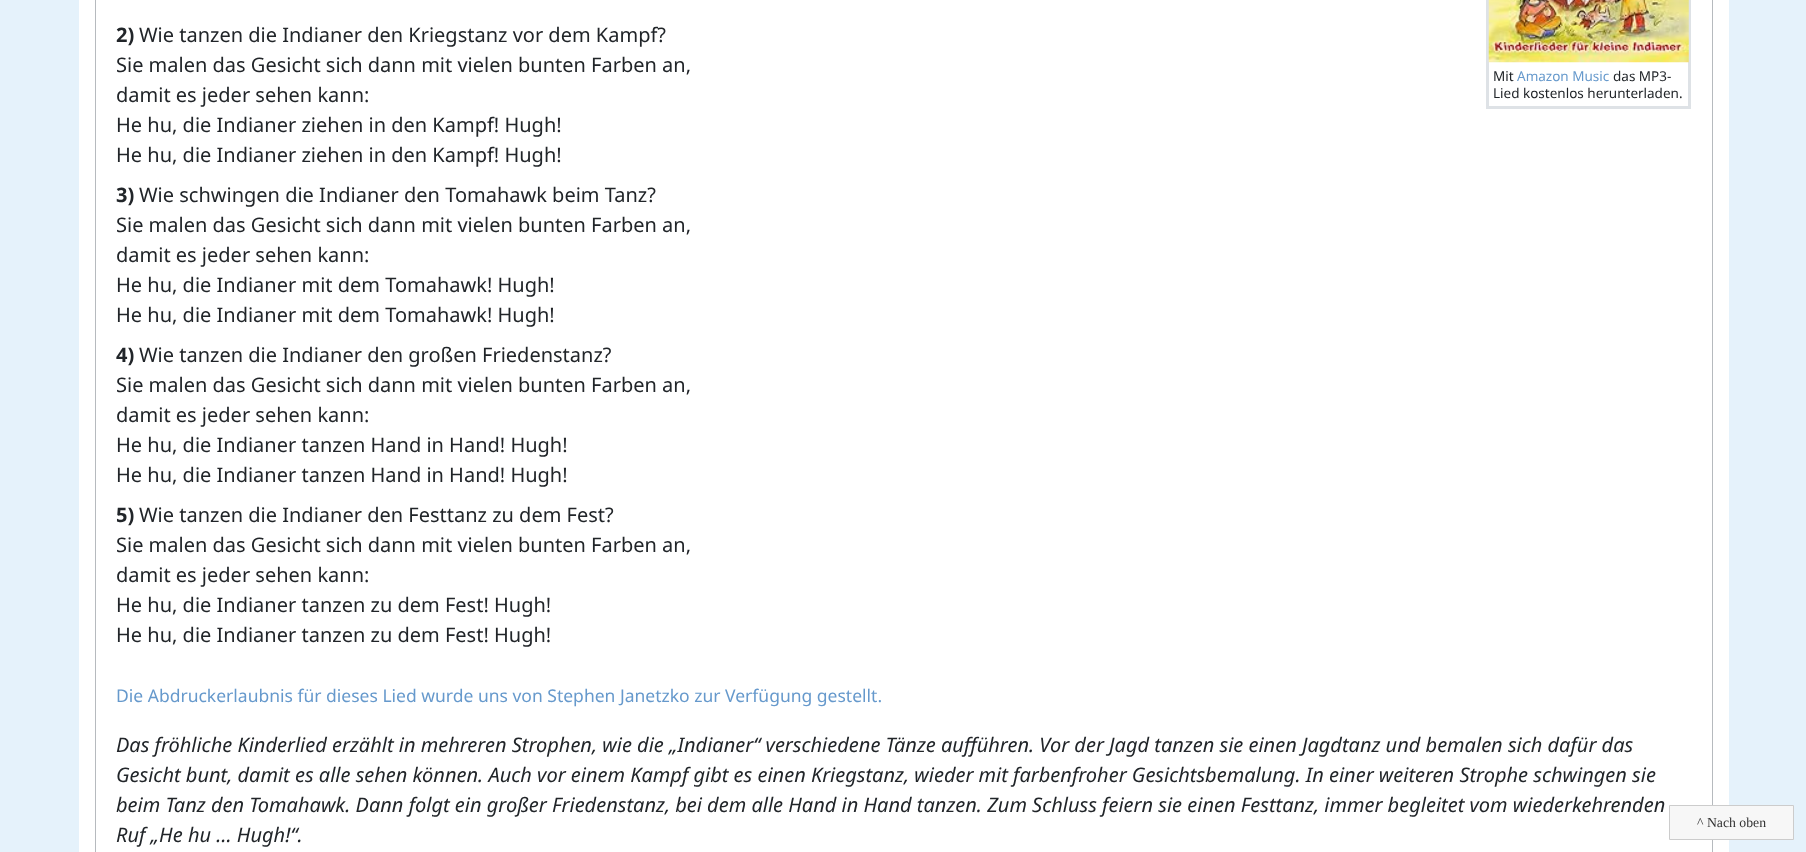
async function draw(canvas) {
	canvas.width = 1806;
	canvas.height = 852;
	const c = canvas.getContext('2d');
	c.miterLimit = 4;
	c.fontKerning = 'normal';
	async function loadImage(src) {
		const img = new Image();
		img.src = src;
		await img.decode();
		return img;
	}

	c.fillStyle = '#e5f2fb';
	c.fillRect(0, 0, 1806, 852);
	c.fillStyle = '#fff';
	c.fillRect(79, 0, 1650, 852);
	c.strokeStyle = '#b6babe';
	c.strokeRect(95.5, -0.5, 1617, 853);
	c.font = 'bold 20px Noto Sans';
	c.fillStyle = '#212529';
	c.fillText('2)', 116, 42);
	c.font = '20px Noto Sans';
	for (const [text, x, y] of [
		['Wie tanzen die Indianer den Kriegstanz vor dem Kampf?', 139, 42],
		['Sie malen das Gesicht sich dann mit vielen bunten Farben an,', 116, 72],
		['damit es jeder sehen kann:', 116, 102],
		['He hu, die Indianer ziehen in den Kampf! Hugh!', 116, 132],
		['He hu, die Indianer ziehen in den Kampf! Hugh!', 116, 162],
	]) {
		c.fillText(text, x, y);
	}
	c.font = 'bold 20px Noto Sans';
	c.fillText('3)', 116, 202);
	c.font = '20px Noto Sans';
	for (const [text, x, y] of [
		['Wie schwingen die Indianer den Tomahawk beim Tanz?', 139, 202],
		['Sie malen das Gesicht sich dann mit vielen bunten Farben an,', 116, 232],
		['damit es jeder sehen kann:', 116, 262],
		['He hu, die Indianer mit dem Tomahawk! Hugh!', 116, 292],
		['He hu, die Indianer mit dem Tomahawk! Hugh!', 116, 322],
	]) {
		c.fillText(text, x, y);
	}
	c.font = 'bold 20px Noto Sans';
	c.fillText('4)', 116, 362);
	c.font = '20px Noto Sans';
	for (const [text, x, y] of [
		['Wie tanzen die Indianer den großen Friedenstanz?', 139, 362],
		['Sie malen das Gesicht sich dann mit vielen bunten Farben an,', 116, 392],
		['damit es jeder sehen kann:', 116, 422],
		['He hu, die Indianer tanzen Hand in Hand! Hugh!', 116, 452],
		['He hu, die Indianer tanzen Hand in Hand! Hugh!', 116, 482],
	]) {
		c.fillText(text, x, y);
	}
	c.font = 'bold 20px Noto Sans';
	c.fillText('5)', 116, 522);
	c.font = '20px Noto Sans';
	for (const [text, x, y] of [
		['Wie tanzen die Indianer den Festtanz zu dem Fest?', 139, 522],
		['Sie malen das Gesicht sich dann mit vielen bunten Farben an,', 116, 552],
		['damit es jeder sehen kann:', 116, 582],
		['He hu, die Indianer tanzen zu dem Fest! Hugh!', 116, 612],
		['He hu, die Indianer tanzen zu dem Fest! Hugh!', 116, 642],
	]) {
		c.fillText(text, x, y);
	}
	c.strokeStyle = '#dee2e6';
	c.lineWidth = 3;
	c.strokeRect(1487.5, -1.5, 202, 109);
	c.drawImage(await loadImage('img1.png'), 1488, 0, 201, 63);
	c.font = '13.5px Noto Sans';
	c.fillText('Mit', 1493, 81);
	c.fillStyle = '#69c';
	c.fillText('Amazon Music', 1517, 81);
	c.fillStyle = '#212529';
	c.fillText('das MP3-', 1613, 81);
	c.fillText('Lied kostenlos herunterladen.', 1493, 98);
	c.font = '17.5px Noto Sans';
	c.fillStyle = '#69c';
	c.fillText('Die Abdruckerlaubnis für dieses Lied wurde uns von Stephen Janetzko zur Verfügung gestellt.', 116, 702);
	c.font = 'italic 20px Noto Sans';
	c.fillStyle = '#212529';
	for (const [text, x, y] of [
		['Das fröhliche Kinderlied erzählt in mehreren Strophen, wie die „Indianer“ verschiedene Tänze aufführen. Vor der Jagd tanzen sie einen Jagdtanz und bemalen sich dafür das', 116, 752],
		['Gesicht bunt, damit es alle sehen können. Auch vor einem Kampf gibt es einen Kriegstanz, wieder mit farbenfroher Gesichtsbemalung. In einer weiteren Strophe schwingen sie', 116, 782],
		['beim Tanz den Tomahawk. Dann folgt ein großer Friedenstanz, bei dem alle Hand in Hand tanzen. Zum Schluss feiern sie einen Festtanz, immer begleitet vom wiederkehrenden', 116, 812],
		['Ruf „He hu … Hugh!“.', 116, 842],
	]) {
		c.fillText(text, x, y);
	}
	c.fillStyle = '#f7f7f7';
	c.beginPath();
	c.rect(1669.5, 805.5, 124, 34);
	c.fill();
	c.strokeStyle = '#ccc';
	c.lineWidth = 1;
	c.stroke();
	c.font = '13.75px Liberation Serif';
	c.fillStyle = '#333';
	c.fillText('^ Nach oben', 1697, 827);
}

draw(document.querySelector('canvas'));
